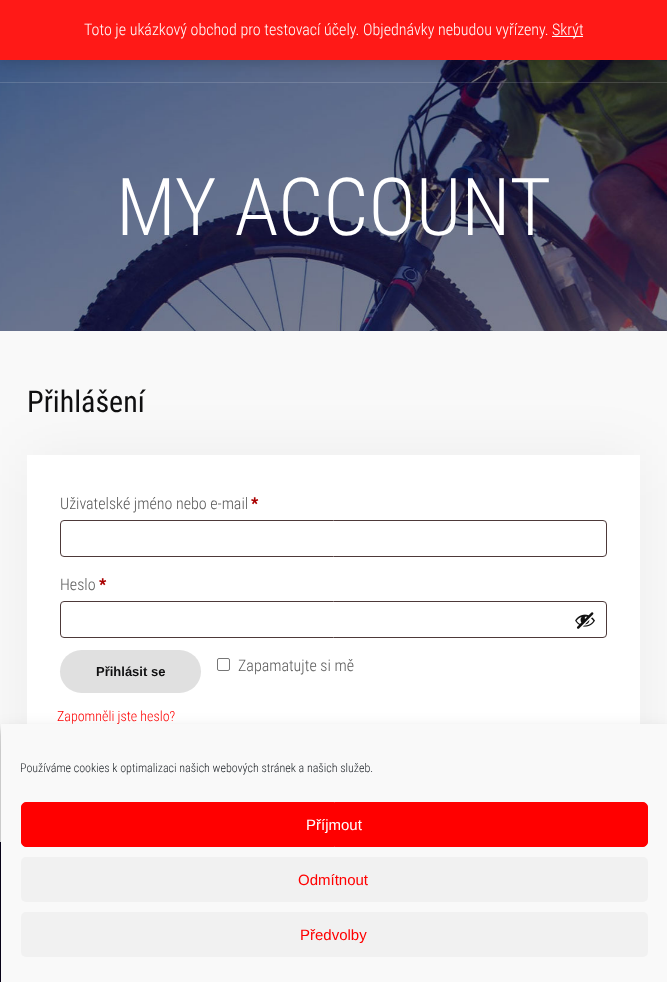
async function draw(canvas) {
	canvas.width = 667;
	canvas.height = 982;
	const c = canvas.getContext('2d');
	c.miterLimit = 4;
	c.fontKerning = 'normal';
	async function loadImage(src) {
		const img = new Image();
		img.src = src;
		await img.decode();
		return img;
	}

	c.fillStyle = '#f9f9f9';
	c.fillRect(0, 0, 667, 982);
	c.drawImage(await loadImage('img1.png'), 0, 60, 667, 271);
	c.fillStyle = '#ffffff26';
	c.fillRect(0, 82, 667, 1);
	c.fillStyle = '#00000033';
	c.filter = 'blur(8px)';
	c.beginPath();
	c.rect(0, 1, 667, 60);
	c.fill();
	c.filter = 'none';
	c.fillStyle = '#ff1917';
	c.fillRect(0, 0, 667, 60);
	c.font = '300 16px Roboto Condensed';
	c.fillStyle = '#fff';
	c.fillText('Toto je ukázkový obchod pro testovací účely. Objednávky nebudou vyřízeny.', 84, 35);
	c.fillStyle = '#fcfbfe';
	c.fillRect(552, 36, 31, 1);
	c.fillStyle = '#fff';
	c.fillText('Skrýt', 552, 35);
	c.font = '300 80px Roboto Condensed';
	c.fillText('MY ACCOUNT', 116, 235);
	c.fillStyle = '#0000000d';
	c.filter = 'blur(30px)';
	c.beginPath();
	c.rect(27, 455, 613, 305);
	c.fill();
	c.filter = 'none';
	c.font = '30px Roboto Condensed';
	c.fillStyle = '#0f0f10';
	c.fillText('Přihlášení', 27, 412);
	c.fillStyle = '#fff';
	c.fillRect(27, 455, 613, 269);
	c.font = '300 16px Roboto Condensed';
	c.fillStyle = '#595959';
	c.fillText('Uživatelské jméno nebo e-mail', 60, 509);
	c.font = 'bold 16px Roboto Condensed';
	c.fillStyle = '#a00';
	c.fillText('*', 251, 509);
	c.beginPath();
	c.roundRect(60.5, 520.5, 546, 36, 3.5);
	c.strokeStyle = '#4d3939';
	c.stroke();
	c.font = '300 16px Roboto Condensed';
	c.fillStyle = '#595959';
	c.fillText('Heslo', 60, 590);
	c.font = 'bold 16px Roboto Condensed';
	c.fillStyle = '#a00';
	c.fillText('*', 99, 590);
	c.beginPath();
	c.roundRect(60.5, 601.5, 546, 36, 3.5);
	c.stroke();
	c.drawImage(await loadImage('img2.png'), 575, 612, 20, 17);
	c.fillStyle = '#e0e0e0';
	c.beginPath();
	c.roundRect(60, 650, 141, 43, 21.5);
	c.fill();
	c.font = 'bold 13px Liberation Sans';
	c.fillStyle = '#0f0f10';
	c.fillText('Přihlásit se', 96, 676);
	c.beginPath();
	c.roundRect(217.5, 658.5, 12, 12, 1.5);
	c.strokeStyle = '#767676';
	c.stroke();
	c.font = '300 16px Roboto Condensed';
	c.fillStyle = '#595959';
	c.fillText('Zapamatujte si mě', 238, 671);
	c.font = '300 14px Roboto Condensed';
	c.fillStyle = '#f00';
	c.fillText('Zapomněli jste heslo?', 57, 721);
	c.fillStyle = '#09041d';
	c.fillRect(0, 842, 1, 140);
	c.fillStyle = '#0000003b';
	c.filter = 'blur(3px)';
	c.beginPath();
	c.rect(1, 730, 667, 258);
	c.fill();
	c.filter = 'none';
	c.fillStyle = '#00000030';
	c.filter = 'blur(10px)';
	c.beginPath();
	c.rect(1, 734, 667, 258);
	c.fill();
	c.filter = 'none';
	c.fillStyle = '#f9f9f9';
	c.fillRect(1, 724, 666, 258);
	c.font = '300 12px Roboto Condensed';
	c.fillStyle = '#191e23';
	c.fillText('Používáme cookies k optimalizaci našich webových stránek a našich služeb.', 20, 772);
	c.fillStyle = '#f00';
	c.beginPath();
	c.roundRect(21.5, 802.5, 626, 44, 4.5);
	c.fill();
	c.strokeStyle = '#f00';
	c.stroke();
	c.font = '15px Liberation Sans';
	c.fillStyle = '#fff';
	c.fillText('Příjmout', 306, 830);
	c.fillStyle = '#f1f1f1';
	c.beginPath();
	c.roundRect(21, 857, 627, 45, 5);
	c.fill();
	c.fillStyle = '#f00';
	c.fillText('Odmítnout', 298, 885);
	c.fillStyle = '#f1f1f1';
	c.beginPath();
	c.roundRect(21, 912, 627, 45, 5);
	c.fill();
	c.fillStyle = '#f00';
	c.fillText('Předvolby', 300, 940);
}

draw(document.querySelector('canvas'));
